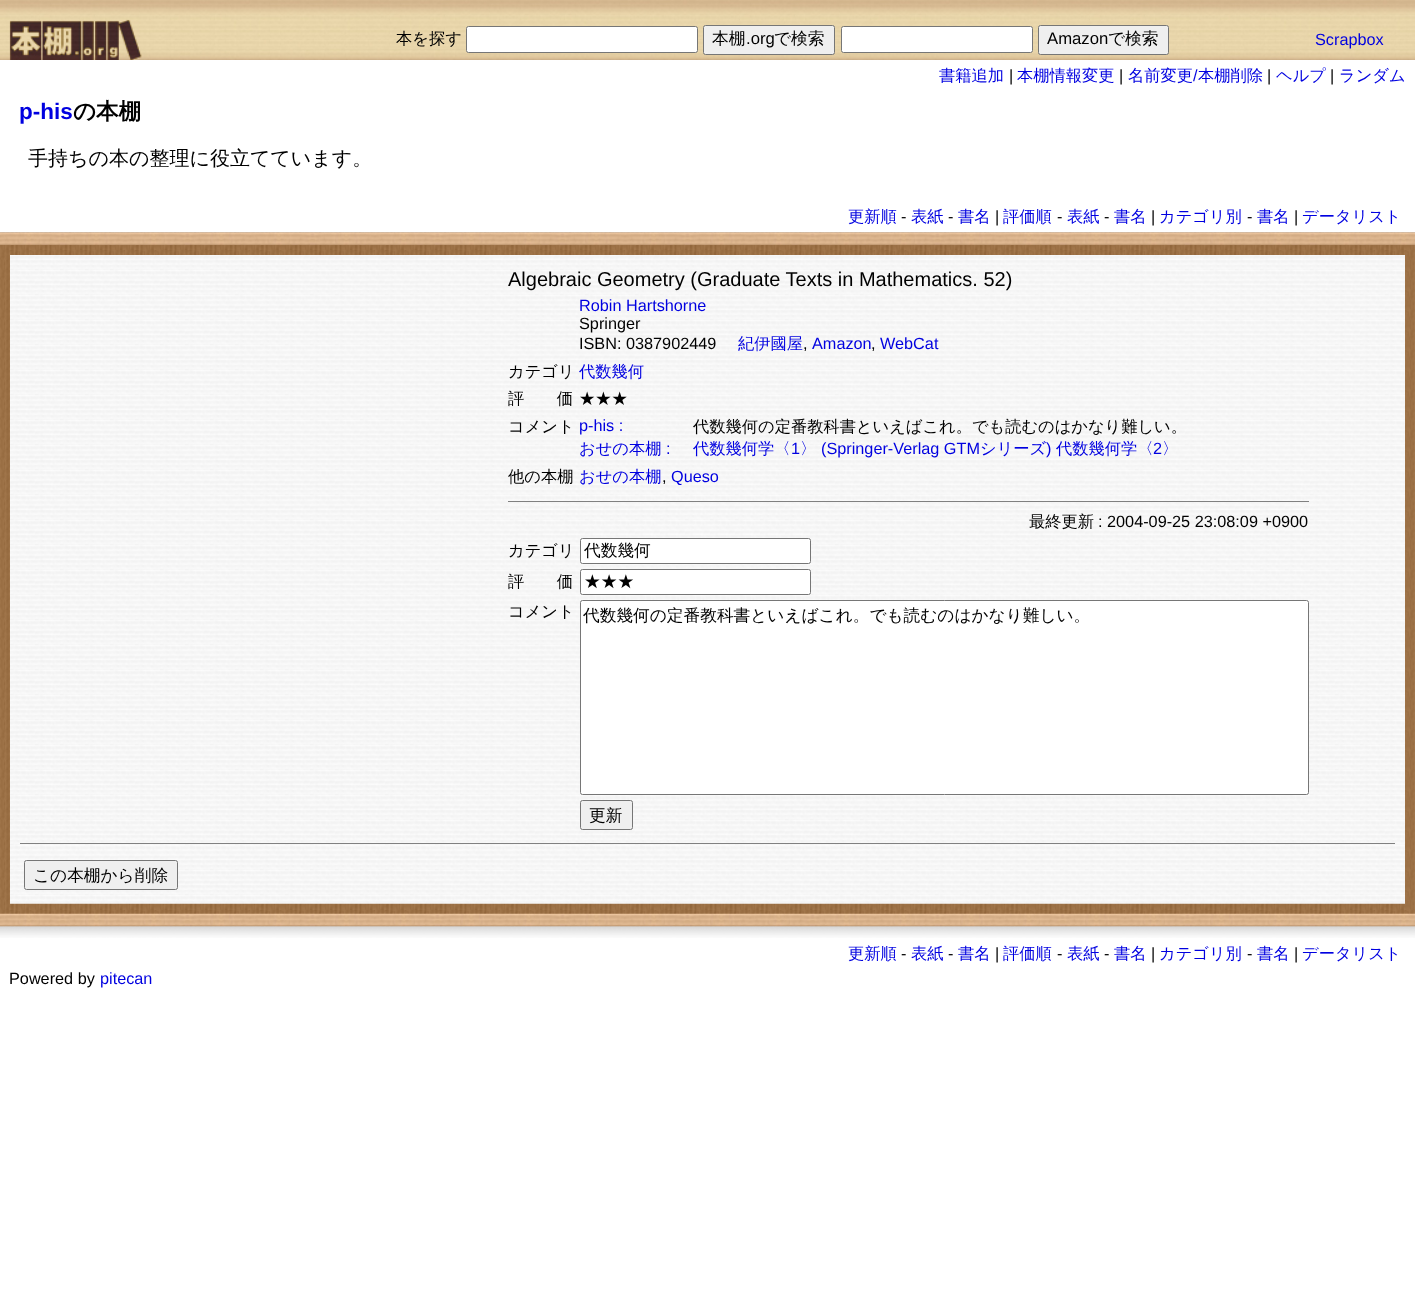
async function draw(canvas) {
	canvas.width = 1415;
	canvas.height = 1293;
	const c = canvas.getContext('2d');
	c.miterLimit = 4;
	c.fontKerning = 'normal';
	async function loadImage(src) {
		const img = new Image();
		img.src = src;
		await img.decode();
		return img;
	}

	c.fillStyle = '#fff';
	c.fillRect(0, 0, 1415, 1293);
	c.drawImage(await loadImage('img1.png'), 0, 0, 1415, 60);
	c.font = '500 16.25px WenQuanYi Zen Hei';
	c.fillStyle = '#000';
	c.fillText('本を探す', 396, 44);
	c.fillStyle = '#fff';
	c.beginPath();
	c.roundRect(466.5, 26.5, 231, 26, 2);
	c.fill();
	c.strokeStyle = '#767676';
	c.stroke();
	c.fillStyle = '#efefef';
	c.beginPath();
	c.roundRect(703.5, 25.5, 131, 29, 2);
	c.fill();
	c.stroke();
	c.font = '500 16.7px WenQuanYi Zen Hei';
	c.fillStyle = '#000';
	c.fillText('本棚', 712, 44);
	c.font = '16.7px Liberation Sans';
	c.fillText('.org', 746, 44);
	c.font = '500 16.7px WenQuanYi Zen Hei';
	c.fillText('で検索', 774, 44);
	c.fillStyle = '#fff';
	c.beginPath();
	c.roundRect(841.5, 26.5, 191, 26, 2);
	c.fill();
	c.stroke();
	c.fillStyle = '#efefef';
	c.beginPath();
	c.roundRect(1038.5, 25.5, 130, 29, 2);
	c.fill();
	c.stroke();
	c.font = '16.7px Liberation Sans';
	c.fillStyle = '#000';
	c.fillText('Amazon', 1047, 44);
	c.font = '500 16.7px WenQuanYi Zen Hei';
	c.fillText('で検索', 1108, 44);
	c.font = '16.25px Liberation Sans';
	c.fillStyle = '#0000e0';
	c.fillText('Scrapbox', 1315, 45);
	c.font = '500 16.25px WenQuanYi Zen Hei';
	c.fillText('書籍追加', 939, 81);
	c.font = '16.25px Liberation Sans';
	c.fillStyle = '#000';
	c.fillText('|', 1009, 81);
	c.font = '500 16.25px WenQuanYi Zen Hei';
	c.fillStyle = '#0000e0';
	c.fillText('本棚情報変更', 1017, 81);
	c.font = '16.25px Liberation Sans';
	c.fillStyle = '#000';
	c.fillText('|', 1119, 81);
	c.font = '500 16.25px WenQuanYi Zen Hei';
	c.fillStyle = '#0000e0';
	c.fillText('名前変更', 1128, 81);
	c.font = '16.25px Liberation Sans';
	c.fillText('/', 1193, 81);
	c.font = '500 16.25px WenQuanYi Zen Hei';
	c.fillText('本棚削除', 1198, 81);
	c.font = '16.25px Liberation Sans';
	c.fillStyle = '#000';
	c.fillText('|', 1267, 81);
	c.font = '500 16.25px WenQuanYi Zen Hei';
	c.fillStyle = '#0000e0';
	c.fillText('ヘルプ', 1276, 81);
	c.font = '16.25px Liberation Sans';
	c.fillStyle = '#000';
	c.fillText('|', 1330, 81);
	c.font = '500 16.25px WenQuanYi Zen Hei';
	c.fillStyle = '#0000e0';
	c.fillText('ランダム', 1339, 81);
	c.font = 'bold 22.5px Liberation Sans';
	c.fillText('p-his', 19, 119);
	c.font = 'bold 22.5px WenQuanYi Zen Hei';
	c.fillStyle = '#000';
	c.fillText('の本棚', 73, 119);
	c.font = '500 20px WenQuanYi Zen Hei';
	c.fillText('手持ちの本の整理に役立てています。', 28, 165);
	c.font = '500 16.25px WenQuanYi Zen Hei';
	c.fillStyle = '#0000e0';
	c.fillText('更新順', 848, 222);
	c.font = '16.25px Liberation Sans';
	c.fillStyle = '#000';
	c.fillText('-', 901, 222);
	c.font = '500 16.25px WenQuanYi Zen Hei';
	c.fillStyle = '#0000e0';
	c.fillText('表紙', 911, 222);
	c.font = '16.25px Liberation Sans';
	c.fillStyle = '#000';
	c.fillText('-', 948, 222);
	c.font = '500 16.25px WenQuanYi Zen Hei';
	c.fillStyle = '#0000e0';
	c.fillText('書名', 958, 222);
	c.font = '16.25px Liberation Sans';
	c.fillStyle = '#000';
	c.fillText('|', 995, 222);
	c.font = '500 16.25px WenQuanYi Zen Hei';
	c.fillStyle = '#0000e0';
	c.fillText('評価順', 1003, 222);
	c.font = '16.25px Liberation Sans';
	c.fillStyle = '#000';
	c.fillText('-', 1057, 222);
	c.font = '500 16.25px WenQuanYi Zen Hei';
	c.fillStyle = '#0000e0';
	c.fillText('表紙', 1067, 222);
	c.font = '16.25px Liberation Sans';
	c.fillStyle = '#000';
	c.fillText('-', 1104, 222);
	c.font = '500 16.25px WenQuanYi Zen Hei';
	c.fillStyle = '#0000e0';
	c.fillText('書名', 1114, 222);
	c.font = '16.25px Liberation Sans';
	c.fillStyle = '#000';
	c.fillText('|', 1151, 222);
	c.font = '500 16.25px WenQuanYi Zen Hei';
	c.fillStyle = '#0000e0';
	c.fillText('カテゴリ別', 1159, 222);
	c.font = '16.25px Liberation Sans';
	c.fillStyle = '#000';
	c.fillText('-', 1247, 222);
	c.font = '500 16.25px WenQuanYi Zen Hei';
	c.fillStyle = '#0000e0';
	c.fillText('書名', 1257, 222);
	c.font = '16.25px Liberation Sans';
	c.fillStyle = '#000';
	c.fillText('|', 1294, 222);
	c.font = '500 16.25px WenQuanYi Zen Hei';
	c.fillStyle = '#0000e0';
	c.fillText('データリスト', 1302, 222);
	c.drawImage(await loadImage('img6.png'), 0, 926, 1415, 12);
	c.drawImage(await loadImage('img2.png'), 0, 232, 1415, 695);
	c.drawImage(await loadImage('img3.png'), 0, 232, 1415, 13);
	c.drawImage(await loadImage('img4.png'), 10, 255, 1395, 649);
	c.font = '20px Liberation Sans';
	c.fillStyle = '#000';
	c.fillText('Algebraic Geometry (Graduate Texts in Mathematics. 52)', 508, 286);
	c.font = '16.25px Liberation Sans';
	c.fillStyle = '#0000e0';
	c.fillText('Robin Hartshorne', 579, 311);
	c.fillStyle = '#000';
	c.fillText('Springer', 579, 329);
	c.fillText('ISBN: 0387902449', 579, 349);
	c.font = '500 16.25px WenQuanYi Zen Hei';
	c.fillStyle = '#0000e0';
	c.fillText('紀伊國屋', 738, 349);
	c.font = '16.25px Liberation Sans';
	c.fillStyle = '#000';
	c.fillText(',', 803, 349);
	c.fillStyle = '#0000e0';
	c.fillText('Amazon', 812, 349);
	c.fillStyle = '#000';
	c.fillText(',', 871, 349);
	c.fillStyle = '#0000e0';
	c.fillText('WebCat', 880, 349);
	c.font = '500 16.25px WenQuanYi Zen Hei';
	c.fillStyle = '#000';
	c.fillText('カテゴリ', 508, 377);
	c.fillStyle = '#0000e0';
	c.fillText('代数幾何', 579, 377);
	c.fillStyle = '#000';
	for (const [text, x, y] of [
		['評　　価', 508, 404],
		['★★★', 579, 404],
		['コメント', 508, 432],
	]) {
		c.fillText(text, x, y);
	}
	c.font = '16.25px Liberation Sans';
	c.fillStyle = '#0000e0';
	c.fillText('p-his :', 579, 431);
	c.font = '500 16.25px WenQuanYi Zen Hei';
	c.fillStyle = '#000';
	c.fillText('代数幾何の定番教科書といえばこれ。でも読むのはかなり難しい。', 693, 432);
	c.fillStyle = '#0000e0';
	c.fillText('おせの本棚', 579, 454);
	c.font = '16.25px Liberation Sans';
	c.fillText(':', 666, 454);
	c.font = '500 16.25px WenQuanYi Zen Hei';
	c.fillText('代数幾何学〈', 693, 454);
	c.font = '16.25px Liberation Sans';
	c.fillText('1', 791, 454);
	c.font = '500 16.25px WenQuanYi Zen Hei';
	c.fillText('〉', 800, 454);
	c.font = '16.25px Liberation Sans';
	c.fillText('(Springer‐Verlag GTM', 821, 454);
	c.font = '500 16.25px WenQuanYi Zen Hei';
	c.fillText('シリーズ', 980, 454);
	c.font = '16.25px Liberation Sans';
	c.fillText(')', 1046, 454);
	c.font = '500 16.25px WenQuanYi Zen Hei';
	c.fillText('代数幾何学〈', 1056, 454);
	c.font = '16.25px Liberation Sans';
	c.fillText('2', 1153, 454);
	c.font = '500 16.25px WenQuanYi Zen Hei';
	c.fillText('〉', 1162, 454);
	c.fillStyle = '#000';
	c.fillText('他の本棚', 508, 482);
	c.fillStyle = '#0000e0';
	c.fillText('おせの本棚', 579, 482);
	c.font = '16.25px Liberation Sans';
	c.fillStyle = '#000';
	c.fillText(',', 662, 482);
	c.fillStyle = '#0000e0';
	c.fillText('Queso', 671, 482);
	c.fillStyle = '#808080';
	c.fillRect(508, 501, 801, 1);
	c.font = '500 16.25px WenQuanYi Zen Hei';
	c.fillStyle = '#000';
	c.fillText('最終更新', 1029, 527);
	c.font = '16.25px Liberation Sans';
	c.fillText(': 2004-09-25 23:08:09 +0900', 1098, 527);
	c.font = '500 16.25px WenQuanYi Zen Hei';
	c.fillText('カテゴリ', 508, 556);
	c.fillStyle = '#fff';
	c.beginPath();
	c.roundRect(580.5, 538.5, 230, 25, 2);
	c.fill();
	c.stroke();
	c.font = '500 16.7px WenQuanYi Zen Hei';
	c.fillStyle = '#000';
	c.fillText('代数幾何', 584, 556);
	c.font = '500 16.25px WenQuanYi Zen Hei';
	c.fillText('評　　価', 508, 587);
	c.fillStyle = '#fff';
	c.beginPath();
	c.roundRect(580.5, 569.5, 230, 25, 2);
	c.fill();
	c.stroke();
	c.font = '500 16.7px WenQuanYi Zen Hei';
	c.fillStyle = '#000';
	c.fillText('★★★', 584, 587);
	c.font = '500 16.25px WenQuanYi Zen Hei';
	c.fillText('コメント', 508, 617);
	c.fillStyle = '#fff';
	c.beginPath();
	c.roundRect(580.5, 600.5, 728, 194, 2);
	c.fill();
	c.stroke();
	c.font = '500 16.7px WenQuanYi Zen Hei';
	c.fillStyle = '#000';
	c.fillText('代数幾何の定番教科書といえばこれ。でも読むのはかなり難しい。', 583, 621);
	c.fillStyle = '#efefef';
	c.beginPath();
	c.roundRect(580.5, 800.5, 52, 29, 2);
	c.fill();
	c.stroke();
	c.fillStyle = '#000';
	c.fillText('更新', 589, 821);
	c.fillStyle = '#808080';
	c.fillRect(20, 843, 1375, 1);
	c.fillStyle = '#efefef';
	c.beginPath();
	c.roundRect(24.5, 860.5, 153, 29, 2);
	c.fill();
	c.stroke();
	c.fillStyle = '#000';
	c.fillText('この本棚から削除', 33, 881);
	c.drawImage(await loadImage('img5.png'), 0, 913, 1415, 14);
	c.font = '500 16.25px WenQuanYi Zen Hei';
	c.fillStyle = '#0000e0';
	c.fillText('更新順', 848, 959);
	c.font = '16.25px Liberation Sans';
	c.fillStyle = '#000';
	c.fillText('-', 901, 959);
	c.font = '500 16.25px WenQuanYi Zen Hei';
	c.fillStyle = '#0000e0';
	c.fillText('表紙', 911, 959);
	c.font = '16.25px Liberation Sans';
	c.fillStyle = '#000';
	c.fillText('-', 948, 959);
	c.font = '500 16.25px WenQuanYi Zen Hei';
	c.fillStyle = '#0000e0';
	c.fillText('書名', 958, 959);
	c.font = '16.25px Liberation Sans';
	c.fillStyle = '#000';
	c.fillText('|', 995, 959);
	c.font = '500 16.25px WenQuanYi Zen Hei';
	c.fillStyle = '#0000e0';
	c.fillText('評価順', 1003, 959);
	c.font = '16.25px Liberation Sans';
	c.fillStyle = '#000';
	c.fillText('-', 1057, 959);
	c.font = '500 16.25px WenQuanYi Zen Hei';
	c.fillStyle = '#0000e0';
	c.fillText('表紙', 1067, 959);
	c.font = '16.25px Liberation Sans';
	c.fillStyle = '#000';
	c.fillText('-', 1104, 959);
	c.font = '500 16.25px WenQuanYi Zen Hei';
	c.fillStyle = '#0000e0';
	c.fillText('書名', 1114, 959);
	c.font = '16.25px Liberation Sans';
	c.fillStyle = '#000';
	c.fillText('|', 1151, 959);
	c.font = '500 16.25px WenQuanYi Zen Hei';
	c.fillStyle = '#0000e0';
	c.fillText('カテゴリ別', 1159, 959);
	c.font = '16.25px Liberation Sans';
	c.fillStyle = '#000';
	c.fillText('-', 1247, 959);
	c.font = '500 16.25px WenQuanYi Zen Hei';
	c.fillStyle = '#0000e0';
	c.fillText('書名', 1257, 959);
	c.font = '16.25px Liberation Sans';
	c.fillStyle = '#000';
	c.fillText('|', 1294, 959);
	c.font = '500 16.25px WenQuanYi Zen Hei';
	c.fillStyle = '#0000e0';
	c.fillText('データリスト', 1302, 959);
	c.font = '16.25px Liberation Sans';
	c.fillStyle = '#000';
	c.fillText('Powered by', 9, 984);
	c.fillStyle = '#0000e0';
	c.fillText('pitecan', 100, 984);
}

draw(document.querySelector('canvas'));
